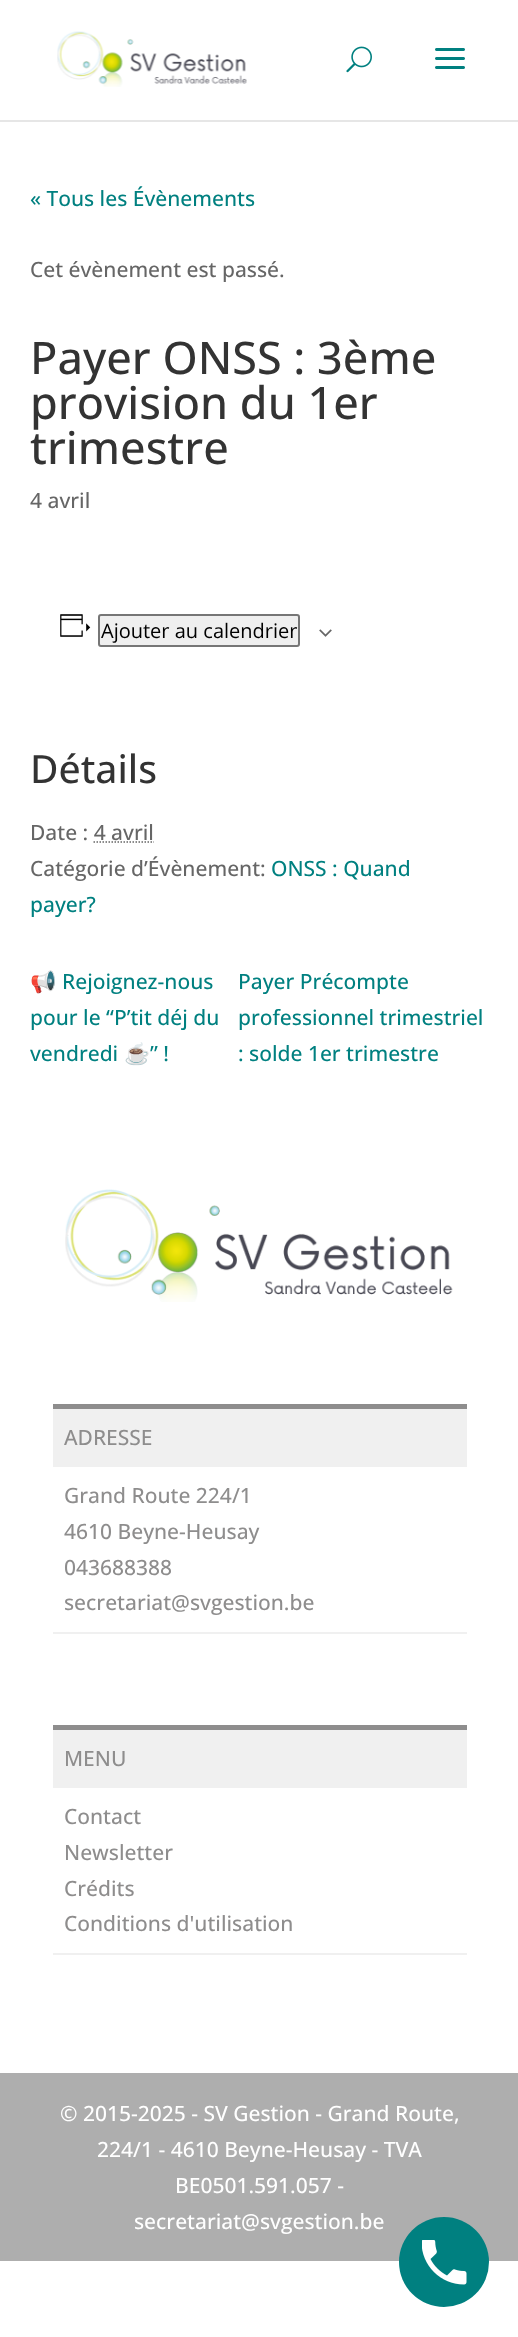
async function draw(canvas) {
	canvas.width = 518;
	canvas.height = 2337;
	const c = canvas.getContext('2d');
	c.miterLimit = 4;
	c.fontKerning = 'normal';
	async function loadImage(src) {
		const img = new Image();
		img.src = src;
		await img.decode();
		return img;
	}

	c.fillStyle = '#fff';
	c.fillRect(0, 0, 518, 2337);
	c.fillStyle = '#e6e6e6';
	c.fillRect(0, 120, 518, 2);
	c.drawImage(await loadImage('img1.png'), 57, 31, 190, 56);
	c.drawImage(await loadImage('img2.png'), 346, 46, 26, 27);
	c.drawImage(await loadImage('img3.png'), 435, 48, 30, 21);
	c.font = '500 21px Open Sans';
	c.fillStyle = '#008080';
	c.fillText('« Tous les Évènements', 30, 206);
	c.fillStyle = '#666';
	c.fillText('Cet évènement est passé.', 30, 277);
	c.font = '500 45px Open Sans';
	c.fillStyle = '#333';
	for (const [text, x, y] of [
		['Payer ONSS : 3ème', 30, 374],
		['provision du 1er', 30, 419],
		['trimestre', 30, 464],
	]) {
		c.fillText(text, x, y);
	}
	c.font = '500 21px Open Sans';
	c.fillStyle = '#666';
	c.fillText('4 avril', 30, 508);
	c.drawImage(await loadImage('img4.png'), 60, 614, 31, 23);
	c.fillStyle = '#efefef';
	c.beginPath();
	c.roundRect(99, 615, 200, 31, 2);
	c.fill();
	c.strokeStyle = '#767676';
	c.lineWidth = 2;
	c.stroke();
	c.font = '20px Open Sans';
	c.fillStyle = '#000';
	c.fillText('Ajouter au calendrier', 101, 638);
	c.drawImage(await loadImage('img5.png'), 319, 629, 13, 8);
	c.font = '500 39px Open Sans';
	c.fillStyle = '#333';
	c.fillText('Détails', 30, 783);
	c.font = '500 21px Open Sans';
	c.fillStyle = '#666';
	c.fillText('Date : 4 avril', 30, 840);
	c.beginPath();
	c.moveTo(93.5, 842);
	c.lineTo(154, 842);
	c.strokeStyle = '#666';
	c.lineWidth = 1.5;
	c.setLineDash([1.5, 1.5]);
	c.stroke();
	c.fillText('Catégorie d’Évènement:', 30, 876);
	c.fillStyle = '#008080';
	c.fillText('ONSS : Quand', 271, 876);
	c.fillText('payer?', 30, 912);
	c.font = '21px Noto Color Emoji';
	c.fillText('📢', 30, 989);
	c.font = '500 21px Open Sans';
	for (const [text, x, y] of [
		['Rejoignez-nous', 62, 989],
		['pour le “P’tit déj du', 30, 1025],
		['vendredi', 30, 1061],
	]) {
		c.fillText(text, x, y);
	}
	c.font = '21px Noto Color Emoji';
	c.fillText('☕', 124, 1061);
	c.font = '500 21px Open Sans';
	for (const [text, x, y] of [
		['” !', 150, 1061],
		['Payer Précompte', 238, 989],
		['professionnel trimestriel', 238, 1025],
		[': solde 1er trimestre', 238, 1061],
	]) {
		c.fillText(text, x, y);
	}
	c.drawImage(await loadImage('img6.png'), 65, 1189, 388, 113);
	for (const [x, y, w, h, color] of [
		[53, 1632, 414, 2, '#f0f0f0'],
		[53, 1404, 414, 5, '#8e8d8d'],
		[53, 1409, 414, 58, '#f0f0f0'],
	]) {
		c.fillStyle = color;
		c.fillRect(x, y, w, h);
	}
	c.fillStyle = '#8e8d8d';
	for (const [text, x, y] of [
		['ADRESSE', 64, 1445],
		['Grand Route 224/1', 64, 1503],
		['4610 Beyne-Heusay', 64, 1539],
		['043688388', 64, 1575],
		['secretariat@svgestion.be', 64, 1610],
	]) {
		c.fillText(text, x, y);
	}
	for (const [x, y, w, h, color] of [
		[53, 1953, 414, 2, '#f0f0f0'],
		[53, 1725, 414, 5, '#8e8d8d'],
		[53, 1730, 414, 58, '#f0f0f0'],
	]) {
		c.fillStyle = color;
		c.fillRect(x, y, w, h);
	}
	c.fillStyle = '#8e8d8d';
	for (const [text, x, y] of [
		['MENU', 64, 1766],
		['Contact', 64, 1824],
		['Newsletter', 64, 1860],
		['Crédits', 64, 1896],
		['Conditions d\'utilisation', 64, 1931],
	]) {
		c.fillText(text, x, y);
	}
	c.fillStyle = '#aeaeae';
	c.fillRect(0, 2073, 518, 188);
	c.fillStyle = '#fff';
	for (const [text, x, y] of [
		['© 2015-2025 - SV Gestion - Grand Route,', 60, 2121],
		['224/1 - 4610 Beyne-Heusay - TVA', 97, 2157],
		['BE0501.591.057 -', 175, 2193],
		['secretariat@svgestion.be', 134, 2229],
	]) {
		c.fillText(text, x, y);
	}
	c.fillStyle = '#008080';
	c.beginPath();
	c.arc(444, 2262, 45, 0, 2 * Math.PI);
	c.fill();
	c.drawImage(await loadImage('img7.png'), 422, 2240, 45, 45);
}

draw(document.querySelector('canvas'));
